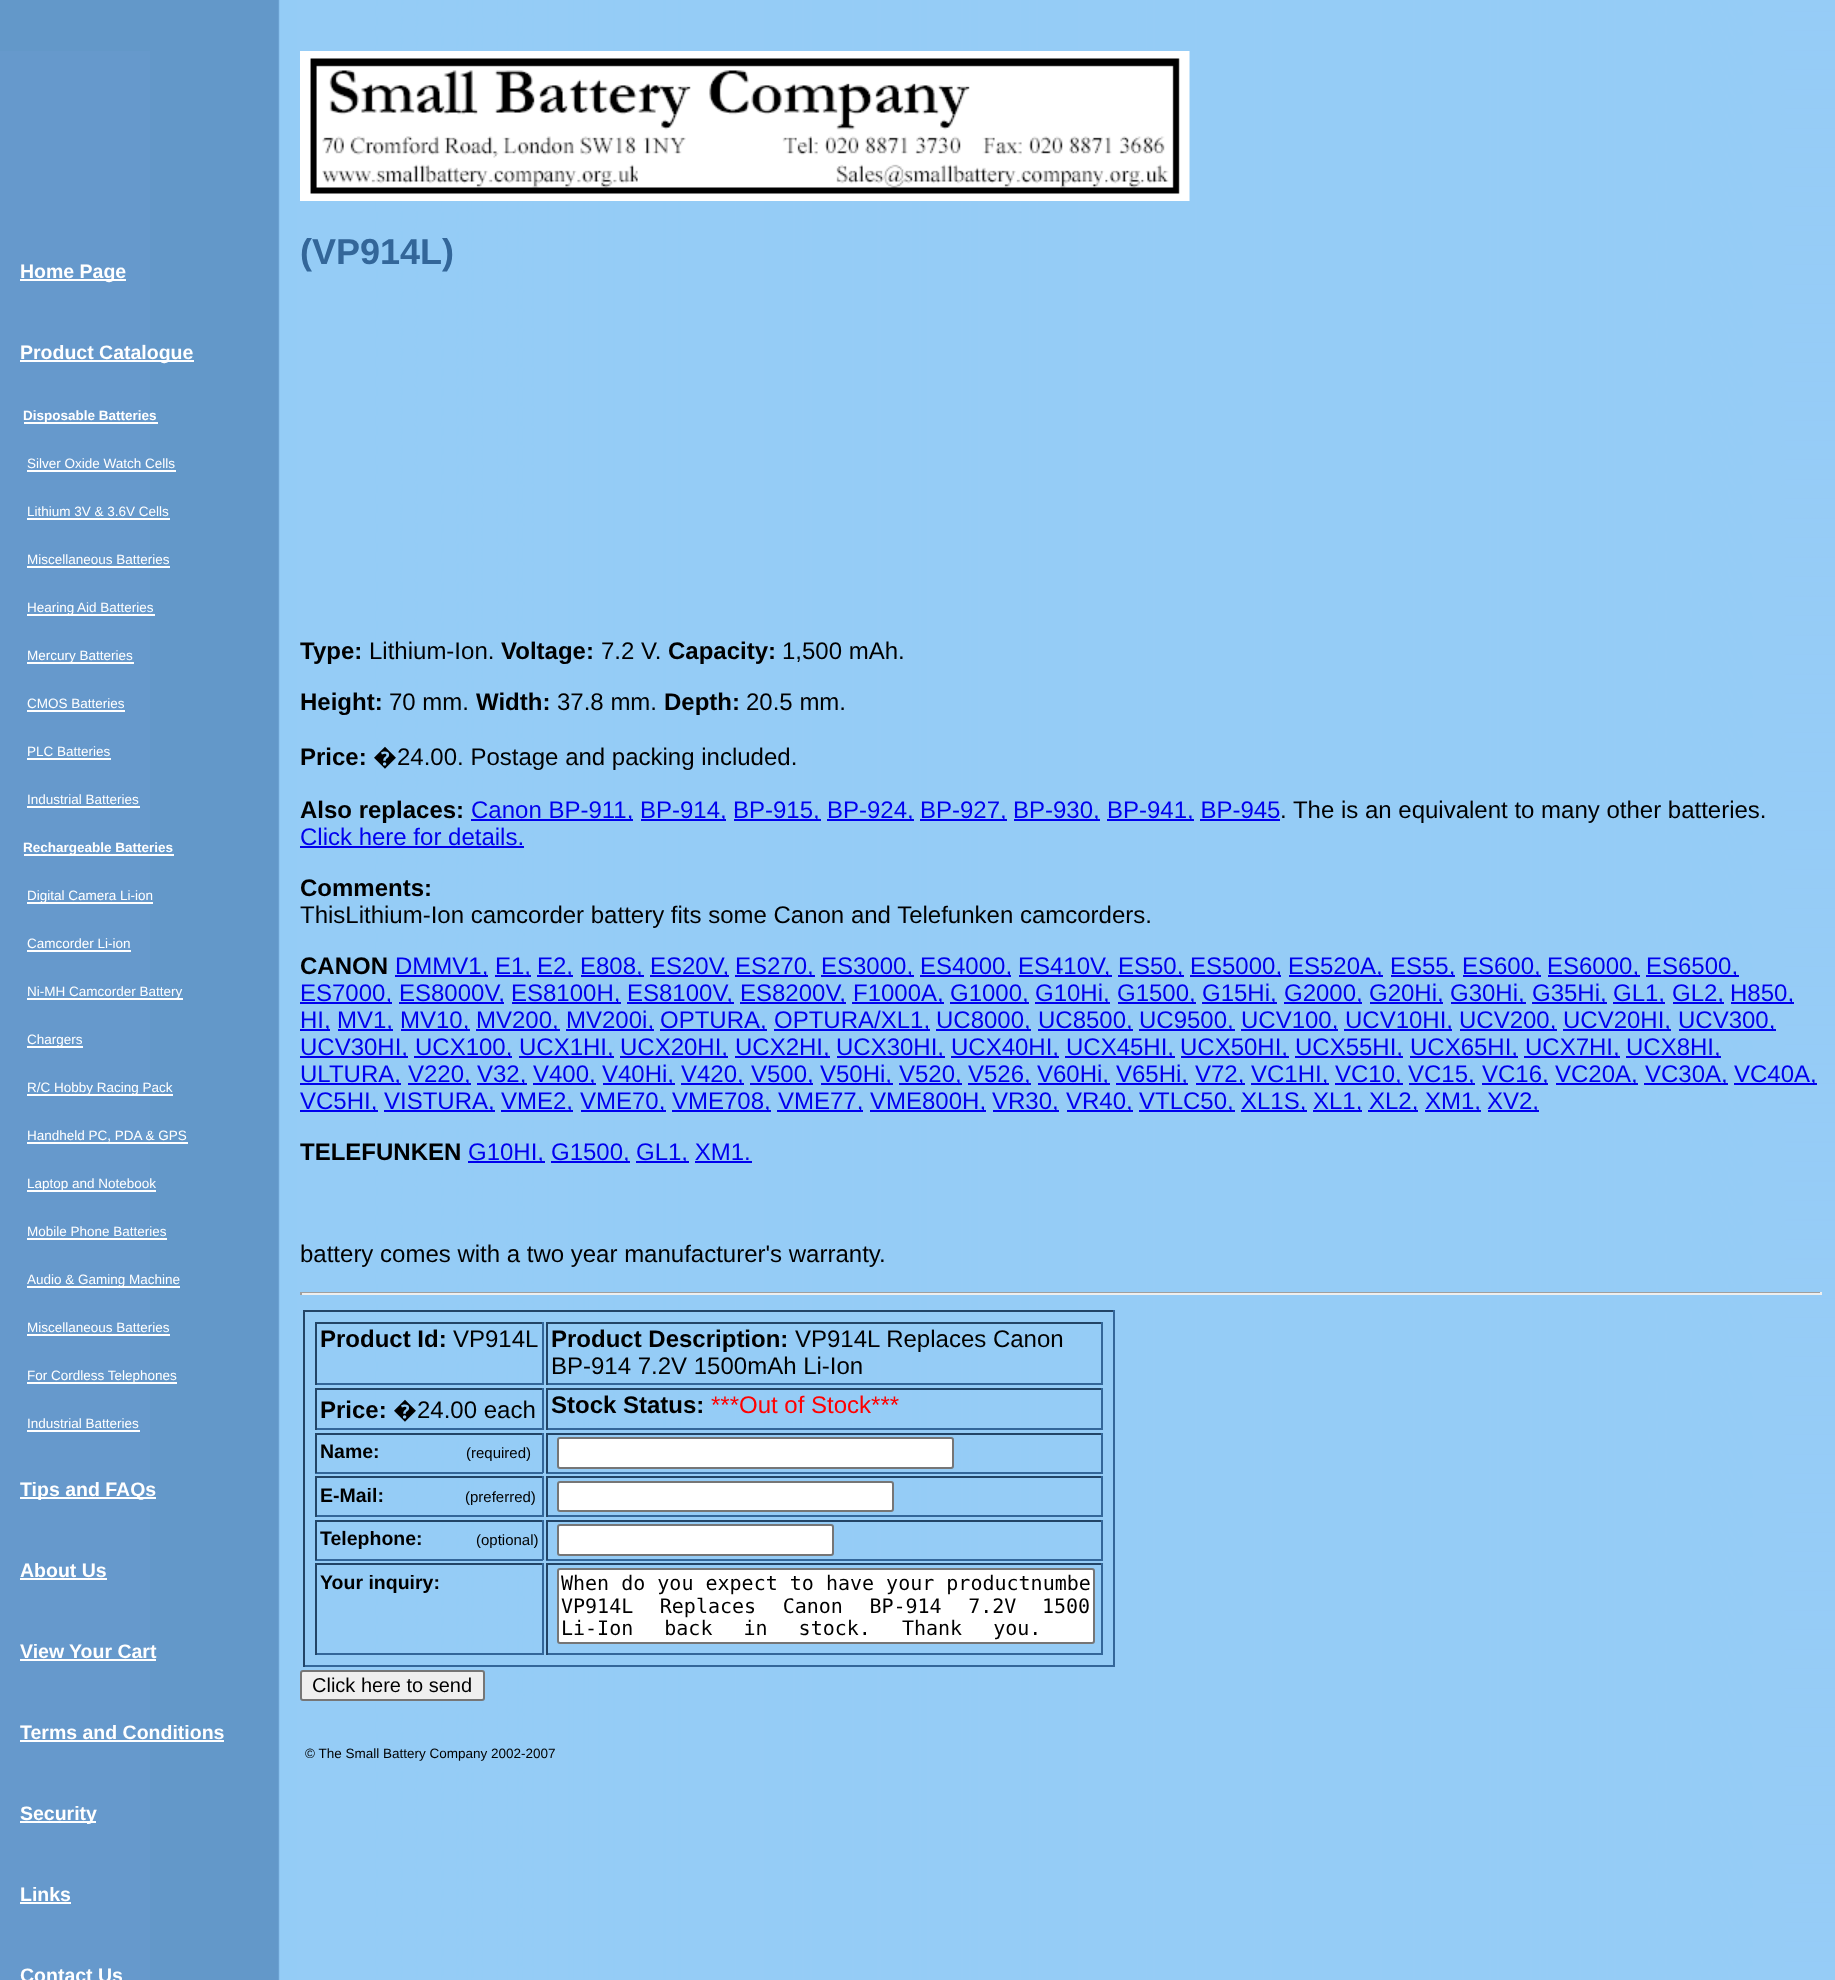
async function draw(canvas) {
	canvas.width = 1835;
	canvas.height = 1980;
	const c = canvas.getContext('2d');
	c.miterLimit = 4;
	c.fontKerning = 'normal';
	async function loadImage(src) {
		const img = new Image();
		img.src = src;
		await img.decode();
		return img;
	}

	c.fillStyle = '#fff';
	c.fillRect(0, 0, 1835, 1980);
	c.drawImage(await loadImage('img1.png'), 0, 0, 1835, 1980);
	c.drawImage(await loadImage('img2.png'), 0, 12, 1835, 1767);
	c.fillStyle = '#69c';
	c.fillRect(0, 51, 150, 1929);
	c.fillStyle = '#fff';
	c.fillRect(20, 279, 106, 2);
	c.font = 'bold 19.5px Liberation Sans';
	c.fillText('Home Page', 20, 278);
	c.fillRect(20, 360, 174, 2);
	c.fillText('Product Catalogue', 20, 359);
	c.fillRect(24, 422, 134, 2);
	c.font = 'bold 13.5px Liberation Sans';
	c.fillText('Disposable Batteries', 23, 420);
	c.font = '13.5px Liberation Sans';
	c.fillText('Silver Oxide Watch Cells', 27, 468);
	c.fillRect(27, 470, 149, 2);
	c.fillText('Lithium 3V & 3.6V Cells', 27, 516);
	c.fillRect(27, 518, 143, 2);
	c.fillText('Miscellaneous Batteries', 27, 564);
	c.fillRect(27, 566, 143, 2);
	c.fillRect(27, 614, 128, 2);
	c.fillText('Hearing', 27, 612);
	c.fillText('Aid Batteries', 77, 612);
	c.fillRect(27, 662, 107, 2);
	c.fillText('Mercury Batteries', 27, 660);
	c.fillText('CMOS Batteries', 27, 708);
	c.fillRect(27, 710, 98, 2);
	c.fillText('PLC Batteries', 27, 756);
	c.fillRect(27, 758, 84, 2);
	c.fillText('Industrial Batteries', 27, 804);
	c.fillRect(27, 806, 113, 2);
	c.fillRect(24, 854, 150, 2);
	c.font = 'bold 13.5px Liberation Sans';
	c.fillText('Rechargeable Batteries', 23, 852);
	c.fillRect(27, 902, 126, 2);
	c.font = '13.5px Liberation Sans';
	c.fillText('Digital Camera Li-ion', 27, 900);
	c.fillText('Camcorder Li-ion', 27, 948);
	c.fillRect(27, 950, 104, 2);
	c.fillRect(27, 998, 156, 2);
	c.fillText('Ni-MH Camcorder Battery', 27, 996);
	c.fillRect(27, 1046, 56, 2);
	c.fillText('Chargers', 27, 1044);
	c.fillRect(27, 1094, 146, 2);
	c.fillText('R/C Hobby Racing Pack', 27, 1092);
	c.fillText('Handheld PC, PDA & GPS', 27, 1140);
	c.fillRect(27, 1142, 161, 2);
	c.fillRect(27, 1190, 129, 2);
	c.fillText('Laptop and Notebook', 27, 1188);
	c.fillText('Mobile Phone Batteries', 27, 1236);
	c.fillRect(27, 1238, 140, 2);
	c.fillRect(27, 1286, 153, 2);
	c.fillText('Audio & Gaming Machine', 27, 1284);
	c.fillText('Miscellaneous Batteries', 27, 1332);
	c.fillRect(27, 1334, 143, 2);
	c.fillRect(27, 1382, 150, 2);
	c.fillText('For Cordless Telephones', 27, 1380);
	c.fillText('Industrial Batteries', 27, 1428);
	c.fillRect(27, 1430, 113, 2);
	c.fillRect(20, 1497, 136, 2);
	c.font = 'bold 19.5px Liberation Sans';
	c.fillText('Tips and FAQs', 20, 1496);
	c.fillText('About Us', 20, 1577);
	c.fillRect(20, 1578, 87, 2);
	c.fillText('View', 20, 1658);
	c.fillText('Your Cart', 69, 1658);
	c.fillRect(20, 1659, 136, 2);
	c.fillText('Terms and Conditions', 20, 1739);
	c.fillRect(20, 1740, 204, 2);
	c.fillRect(20, 1821, 76, 2);
	c.fillText('Security', 20, 1820);
	c.fillText('Links', 20, 1901);
	c.fillRect(20, 1902, 51, 2);
	c.fillText('Contact Us', 20, 1982);
	c.drawImage(await loadImage('img3.png'), 300, 51, 890, 150);
	c.font = 'bold 36px Liberation Sans';
	c.fillStyle = '#369';
	c.fillText('(VP914L)', 300, 264);
	c.font = 'bold 24px Liberation Sans';
	c.fillStyle = '#000';
	c.fillText('Type:', 300, 659);
	c.font = '24px Liberation Sans';
	c.fillText('Lithium-Ion.', 369, 659);
	c.font = 'bold 24px Liberation Sans';
	c.fillText('Voltage:', 501, 659);
	c.font = '24px Liberation Sans';
	c.fillText('7.2 V.', 601, 659);
	c.font = 'bold 24px Liberation Sans';
	c.fillText('Capacity:', 668, 659);
	c.font = '24px Liberation Sans';
	c.fillText('1,500 mAh.', 782, 659);
	c.font = 'bold 24px Liberation Sans';
	c.fillText('Height:', 300, 710);
	c.font = '24px Liberation Sans';
	c.fillText('70 mm.', 389, 710);
	c.font = 'bold 24px Liberation Sans';
	c.fillText('Width:', 476, 710);
	c.font = '24px Liberation Sans';
	c.fillText('37.8 mm.', 557, 710);
	c.font = 'bold 24px Liberation Sans';
	c.fillText('Depth:', 664, 710);
	c.font = '24px Liberation Sans';
	c.fillText('20.5 mm.', 746, 710);
	c.font = 'bold 24px Liberation Sans';
	c.fillText('Price:', 300, 765);
	c.font = '24px Noto Sans';
	c.fillText('�', 373, 765);
	c.font = '24px Liberation Sans';
	c.fillText('24.00. Postage and packing included.', 397, 765);
	c.font = 'bold 24px Liberation Sans';
	c.fillText('Also replaces:', 300, 818);
	c.fillStyle = '#00e';
	c.fillRect(471, 819, 162, 2);
	c.font = '24px Liberation Sans';
	c.fillText('Canon BP-911,', 471, 818);
	c.fillRect(641, 819, 85, 2);
	c.fillText('BP-914,', 640, 818);
	c.fillRect(734, 819, 87, 2);
	c.fillText('BP-915,', 733, 818);
	c.fillRect(827, 819, 87, 2);
	c.fillText('BP-924,', 827, 818);
	c.fillRect(920, 819, 87, 2);
	c.fillText('BP-927,', 920, 818);
	c.fillRect(1014, 819, 86, 2);
	c.fillText('BP-930,', 1013, 818);
	c.fillRect(1107, 819, 87, 2);
	c.fillText('BP-941, BP-945', 1107, 818);
	c.fillStyle = '#000';
	c.fillText('. The is an equivalent to many other batteries.', 1280, 818);
	c.fillStyle = '#00e';
	c.fillRect(1200, 819, 80, 2);
	c.fillText('Click here for details.', 300, 845);
	c.fillRect(300, 846, 224, 2);
	c.font = 'bold 24px Liberation Sans';
	c.fillStyle = '#000';
	c.fillText('Comments:', 300, 896);
	c.font = '24px Liberation Sans';
	c.fillText('ThisLithium-Ion camcorder battery fits some Canon and Telefunken camcorders.', 300, 923);
	c.font = 'bold 24px Liberation Sans';
	c.fillText('CANON', 300, 974);
	c.fillStyle = '#00e';
	c.fillRect(395, 975, 93, 2);
	c.font = '24px Liberation Sans';
	c.fillText('DMMV1,', 395, 974);
	c.fillRect(495, 975, 36, 2);
	c.fillText('E1,', 495, 974);
	c.fillRect(537, 975, 36, 2);
	c.fillText('E2,', 537, 974);
	c.fillRect(581, 975, 63, 2);
	c.fillText('E808,', 580, 974);
	c.fillRect(650, 975, 79, 2);
	c.fillText('ES20V,', 650, 974);
	c.fillRect(735, 975, 80, 2);
	c.fillText('ES270,', 735, 974);
	c.fillRect(821, 975, 93, 2);
	c.fillText('ES3000,', 821, 974);
	c.fillRect(920, 975, 91, 2);
	c.fillText('ES4000,', 920, 974);
	c.fillRect(1019, 975, 93, 2);
	c.fillText('ES410V,', 1018, 974);
	c.fillRect(1118, 975, 66, 2);
	c.fillText('ES50,', 1118, 974);
	c.fillRect(1190, 975, 91, 2);
	c.fillText('ES5000,', 1190, 974);
	c.fillRect(1289, 975, 94, 2);
	c.fillText('ES520A,', 1288, 974);
	c.fillRect(1391, 975, 64, 2);
	c.fillText('ES55,', 1390, 974);
	c.fillRect(1463, 975, 78, 2);
	c.fillText('ES600,', 1462, 974);
	c.fillRect(1548, 975, 92, 2);
	c.fillText('ES6000,', 1547, 974);
	c.fillRect(1646, 975, 93, 2);
	c.fillText('ES6500,', 1646, 974);
	c.fillRect(300, 1002, 92, 2);
	c.fillText('ES7000,', 300, 1001);
	c.fillRect(399, 1002, 105, 2);
	c.fillText('ES8000V,', 399, 1001);
	c.fillRect(512, 1002, 109, 2);
	c.fillText('ES8100H,', 511, 1001);
	c.fillRect(627, 1002, 107, 2);
	c.fillText('ES8100V,', 627, 1001);
	c.fillRect(740, 1002, 106, 2);
	c.fillText('ES8200V,', 740, 1001);
	c.fillRect(852, 1002, 92, 2);
	c.fillText('F1000A,', 853, 1001);
	c.fillRect(950, 1002, 79, 2);
	c.fillText('G1000,', 950, 1001);
	c.fillRect(1035, 1002, 75, 2);
	c.fillText('G10Hi,', 1035, 1001);
	c.fillRect(1118, 1002, 78, 2);
	c.fillText('G1500,', 1117, 1001);
	c.fillRect(1202, 1002, 75, 2);
	c.fillText('G15Hi,', 1202, 1001);
	c.fillRect(1284, 1002, 78, 2);
	c.fillText('G2000,', 1284, 1001);
	c.fillRect(1370, 1002, 73, 2);
	c.fillText('G20Hi,', 1369, 1001);
	c.fillRect(1451, 1002, 75, 2);
	c.fillText('G30Hi,', 1450, 1001);
	c.fillRect(1532, 1002, 75, 2);
	c.fillText('G35Hi,', 1532, 1001);
	c.fillRect(1613, 1002, 52, 2);
	c.fillText('GL1,', 1613, 1001);
	c.fillRect(1673, 1002, 51, 2);
	c.fillText('GL2,', 1672, 1001);
	c.fillRect(1731, 1002, 63, 2);
	c.fillText('H850,', 1730, 1001);
	c.fillRect(300, 1029, 30, 2);
	c.fillText('HI,', 300, 1028);
	c.fillRect(338, 1029, 55, 2);
	c.fillText('MV1,', 337, 1028);
	c.fillRect(401, 1029, 69, 2);
	c.fillText('MV10,', 400, 1028);
	c.fillRect(476, 1029, 84, 2);
	c.fillText('MV200,', 476, 1028);
	c.fillRect(566, 1029, 88, 2);
	c.fillText('MV200i,', 566, 1028);
	c.fillRect(660, 1029, 107, 2);
	c.fillText('OPTURA,', 660, 1028);
	c.fillRect(774, 1029, 156, 2);
	c.fillText('OPTURA/XL1,', 774, 1028);
	c.fillRect(936, 1029, 95, 2);
	c.fillText('UC8000,', 936, 1028);
	c.fillRect(1038, 1029, 95, 2);
	c.fillText('UC8500,', 1038, 1028);
	c.fillRect(1139, 1029, 96, 2);
	c.fillText('UC9500,', 1139, 1028);
	c.fillRect(1241, 1029, 97, 2);
	c.fillText('UCV100,', 1241, 1028);
	c.fillRect(1344, 1029, 108, 2);
	c.fillText('UCV10HI,', 1345, 1028);
	c.fillRect(1460, 1029, 97, 2);
	c.fillText('UCV200,', 1459, 1028);
	c.fillRect(1563, 1029, 108, 2);
	c.fillText('UCV20HI,', 1563, 1028);
	c.fillRect(1679, 1029, 97, 2);
	c.fillText('UCV300,', 1678, 1028);
	c.fillRect(300, 1056, 108, 2);
	c.fillText('UCV30HI,', 300, 1055);
	c.fillRect(414, 1056, 98, 2);
	c.fillText('UCX100,', 415, 1055);
	c.fillRect(519, 1056, 95, 2);
	c.fillText('UCX1HI,', 519, 1055);
	c.fillRect(620, 1056, 108, 2);
	c.fillText('UCX20HI,', 620, 1055);
	c.fillRect(735, 1056, 95, 2);
	c.fillText('UCX2HI,', 735, 1055);
	c.fillRect(837, 1056, 108, 2);
	c.fillText('UCX30HI,', 836, 1055);
	c.fillRect(951, 1056, 108, 2);
	c.fillText('UCX40HI,', 951, 1055);
	c.fillRect(1065, 1056, 110, 2);
	c.fillText('UCX45HI,', 1066, 1055);
	c.fillRect(1181, 1056, 108, 2);
	c.fillText('UCX50HI,', 1180, 1055);
	c.fillRect(1295, 1056, 108, 2);
	c.fillText('UCX55HI,', 1295, 1055);
	c.fillRect(1410, 1056, 108, 2);
	c.fillText('UCX65HI,', 1410, 1055);
	c.fillRect(1524, 1056, 96, 2);
	c.fillText('UCX7HI,', 1525, 1055);
	c.fillRect(1626, 1056, 95, 2);
	c.fillText('UCX8HI,', 1626, 1055);
	c.fillRect(300, 1083, 101, 2);
	c.fillText('ULTURA,', 300, 1082);
	c.fillRect(408, 1083, 63, 2);
	c.fillText('V220,', 408, 1082);
	c.fillRect(477, 1083, 50, 2);
	c.fillText('V32,', 477, 1082);
	c.fillRect(533, 1083, 63, 2);
	c.fillText('V400,', 533, 1082);
	c.fillRect(603, 1083, 72, 2);
	c.fillText('V40Hi,', 602, 1082);
	c.fillRect(681, 1083, 63, 2);
	c.fillText('V420,', 681, 1082);
	c.fillRect(750, 1083, 63, 2);
	c.fillText('V500,', 751, 1082);
	c.fillRect(821, 1083, 72, 2);
	c.fillText('V50Hi,', 820, 1082);
	c.fillRect(899, 1083, 63, 2);
	c.fillText('V520,', 899, 1082);
	c.fillRect(968, 1083, 63, 2);
	c.fillText('V526,', 968, 1082);
	c.fillRect(1038, 1083, 72, 2);
	c.fillText('V60Hi,', 1037, 1082);
	c.fillRect(1116, 1083, 72, 2);
	c.fillText('V65Hi,', 1116, 1082);
	c.fillRect(1196, 1083, 49, 2);
	c.fillText('V72,', 1195, 1082);
	c.fillRect(1251, 1083, 78, 2);
	c.fillText('VC1HI,', 1251, 1082);
	c.fillRect(1335, 1083, 68, 2);
	c.fillText('VC10,', 1335, 1082);
	c.fillRect(1409, 1083, 66, 2);
	c.fillText('VC15,', 1408, 1082);
	c.fillRect(1482, 1083, 66, 2);
	c.fillText('VC16,', 1482, 1082);
	c.fillRect(1556, 1083, 82, 2);
	c.fillText('VC20A,', 1555, 1082);
	c.fillRect(1644, 1083, 84, 2);
	c.fillText('VC30A,', 1645, 1082);
	c.fillRect(1734, 1083, 83, 2);
	c.fillText('VC40A,', 1734, 1082);
	c.fillRect(300, 1110, 78, 2);
	c.fillText('VC5HI,', 300, 1109);
	c.fillRect(384, 1110, 111, 2);
	c.fillText('VISTURA,', 384, 1109);
	c.fillRect(501, 1110, 72, 2);
	c.fillText('VME2,', 501, 1109);
	c.fillRect(581, 1110, 85, 2);
	c.fillText('VME70,', 580, 1109);
	c.fillRect(672, 1110, 99, 2);
	c.fillText('VME708,', 672, 1109);
	c.fillRect(777, 1110, 86, 2);
	c.fillText('VME77,', 778, 1109);
	c.fillRect(870, 1110, 116, 2);
	c.fillText('VME800H,', 870, 1109);
	c.fillRect(993, 1110, 66, 2);
	c.fillText('VR30,', 992, 1109);
	c.fillRect(1067, 1110, 66, 2);
	c.fillText('VR40,', 1066, 1109);
	c.fillRect(1139, 1110, 96, 2);
	c.fillText('VTLC50,', 1139, 1109);
	c.fillRect(1241, 1110, 66, 2);
	c.fillText('XL1S,', 1241, 1109);
	c.fillRect(1313, 1110, 49, 2);
	c.fillText('XL1,', 1313, 1109);
	c.fillRect(1368, 1110, 50, 2);
	c.fillText('XL2,', 1369, 1109);
	c.fillRect(1425, 1110, 56, 2);
	c.fillText('XM1,', 1425, 1109);
	c.fillRect(1488, 1110, 51, 2);
	c.fillText('XV2,', 1487, 1109);
	c.font = 'bold 24px Liberation Sans';
	c.fillStyle = '#000';
	c.fillText('TELEFUNKEN', 300, 1160);
	c.fillStyle = '#00e';
	c.fillRect(468, 1161, 77, 2);
	c.font = '24px Liberation Sans';
	c.fillText('G10HI,', 468, 1160);
	c.fillRect(551, 1161, 79, 2);
	c.fillText('G1500,', 551, 1160);
	c.fillRect(636, 1161, 53, 2);
	c.fillText('GL1, XM1.', 636, 1160);
	c.fillRect(695, 1161, 57, 2);
	c.fillStyle = '#000';
	c.fillText('battery comes with a two year manufacturer\'s warranty.', 300, 1262);
	for (const [x, y, w, h, color] of [
		[300, 1292, 1521, 1, '#9f9f9f'],
		[1820, 1292, 2, 3, '#eee'],
		[300, 1293, 1521, 2, '#eee'],
		[300, 1292, 2, 3, '#9f9f9f'],
		[303, 1310, 812, 2, '#246'],
		[1113, 1310, 2, 357, '#369'],
		[303, 1665, 812, 2, '#369'],
		[303, 1310, 2, 357, '#246'],
		[315, 1322, 228, 2, '#246'],
		[542, 1322, 2, 63, '#369'],
		[315, 1383, 228, 2, '#369'],
		[315, 1322, 2, 63, '#246'],
	]) {
		c.fillStyle = color;
		c.fillRect(x, y, w, h);
	}
	c.font = 'bold 24px Liberation Sans';
	c.fillStyle = '#000';
	c.fillText('Product Id:', 320, 1347);
	c.font = '24px Liberation Sans';
	c.fillText('VP914L', 453, 1347);
	for (const [x, y, w, h, color] of [
		[546, 1322, 557, 2, '#246'],
		[1101, 1322, 2, 63, '#369'],
		[546, 1383, 557, 2, '#369'],
		[546, 1322, 2, 63, '#246'],
	]) {
		c.fillStyle = color;
		c.fillRect(x, y, w, h);
	}
	c.font = 'bold 24px Liberation Sans';
	c.fillStyle = '#000';
	c.fillText('Product Description:', 551, 1347);
	c.font = '24px Liberation Sans';
	c.fillText('VP914L Replaces Canon', 795, 1347);
	c.fillText('BP-914 7.2V 1500mAh Li-Ion', 551, 1374);
	for (const [x, y, w, h, color] of [
		[315, 1388, 228, 2, '#246'],
		[542, 1388, 2, 42, '#369'],
		[315, 1428, 228, 2, '#369'],
		[315, 1388, 2, 42, '#246'],
	]) {
		c.fillStyle = color;
		c.fillRect(x, y, w, h);
	}
	c.font = 'bold 24px Liberation Sans';
	c.fillStyle = '#000';
	c.fillText('Price:', 320, 1418);
	c.font = '24px Noto Sans';
	c.fillText('�', 393, 1418);
	c.font = '24px Liberation Sans';
	c.fillText('24.00 each', 417, 1418);
	for (const [x, y, w, h, color] of [
		[546, 1388, 557, 2, '#246'],
		[1101, 1388, 2, 42, '#369'],
		[546, 1428, 557, 2, '#369'],
		[546, 1388, 2, 42, '#246'],
	]) {
		c.fillStyle = color;
		c.fillRect(x, y, w, h);
	}
	c.font = 'bold 24px Liberation Sans';
	c.fillStyle = '#000';
	c.fillText('Stock Status:', 551, 1413);
	c.font = '24px Liberation Sans';
	c.fillStyle = '#f00';
	c.fillText('***Out of Stock***', 711, 1413);
	for (const [x, y, w, h, color] of [
		[315, 1433, 228, 2, '#246'],
		[542, 1433, 2, 40, '#369'],
		[315, 1472, 228, 2, '#369'],
		[315, 1433, 2, 40, '#246'],
	]) {
		c.fillStyle = color;
		c.fillRect(x, y, w, h);
	}
	c.font = 'bold 19.5px Liberation Sans';
	c.fillStyle = '#000';
	c.fillText('Name:', 320, 1458);
	c.font = '15px Liberation Sans';
	c.fillText('(required)', 466, 1458);
	for (const [x, y, w, h, color] of [
		[546, 1433, 557, 2, '#246'],
		[1101, 1433, 2, 40, '#369'],
		[546, 1472, 557, 2, '#369'],
		[546, 1433, 2, 40, '#246'],
	]) {
		c.fillStyle = color;
		c.fillRect(x, y, w, h);
	}
	c.fillStyle = '#fff';
	c.beginPath();
	c.roundRect(558, 1438, 395, 30, 2);
	c.fill();
	c.strokeStyle = '#767676';
	c.lineWidth = 2;
	c.stroke();
	for (const [x, y, w, h, color] of [
		[315, 1476, 228, 2, '#246'],
		[542, 1476, 2, 41, '#369'],
		[315, 1515, 228, 2, '#369'],
		[315, 1476, 2, 41, '#246'],
	]) {
		c.fillStyle = color;
		c.fillRect(x, y, w, h);
	}
	c.font = 'bold 19.5px Liberation Sans';
	c.fillStyle = '#000';
	c.fillText('E-Mail:', 320, 1502);
	c.font = '15px Liberation Sans';
	c.fillText('(preferred)', 465, 1502);
	for (const [x, y, w, h, color] of [
		[546, 1476, 557, 2, '#246'],
		[1101, 1476, 2, 41, '#369'],
		[546, 1515, 557, 2, '#369'],
		[546, 1476, 2, 41, '#246'],
	]) {
		c.fillStyle = color;
		c.fillRect(x, y, w, h);
	}
	c.fillStyle = '#fff';
	c.beginPath();
	c.roundRect(558, 1482, 335, 29, 2);
	c.fill();
	c.stroke();
	for (const [x, y, w, h, color] of [
		[315, 1520, 228, 2, '#246'],
		[542, 1520, 2, 40, '#369'],
		[315, 1559, 228, 2, '#369'],
		[315, 1520, 2, 40, '#246'],
	]) {
		c.fillStyle = color;
		c.fillRect(x, y, w, h);
	}
	c.font = 'bold 19.5px Liberation Sans';
	c.fillStyle = '#000';
	c.fillText('Telephone:', 320, 1545);
	c.font = '15px Liberation Sans';
	c.fillText('(optional)', 476, 1545);
	for (const [x, y, w, h, color] of [
		[546, 1520, 557, 2, '#246'],
		[1101, 1520, 2, 40, '#369'],
		[546, 1559, 557, 2, '#369'],
		[546, 1520, 2, 40, '#246'],
	]) {
		c.fillStyle = color;
		c.fillRect(x, y, w, h);
	}
	c.fillStyle = '#fff';
	c.beginPath();
	c.roundRect(558, 1525, 275, 30, 2);
	c.fill();
	c.stroke();
	for (const [x, y, w, h, color] of [
		[315, 1563, 228, 2, '#246'],
		[542, 1563, 2, 92, '#369'],
		[315, 1653, 228, 2, '#369'],
		[315, 1563, 2, 92, '#246'],
	]) {
		c.fillStyle = color;
		c.fillRect(x, y, w, h);
	}
	c.font = 'bold 19.5px Liberation Sans';
	c.fillStyle = '#000';
	c.fillText('Your inquiry:', 320, 1589);
	for (const [x, y, w, h, color] of [
		[546, 1563, 557, 2, '#246'],
		[1101, 1563, 2, 92, '#369'],
		[546, 1653, 557, 2, '#369'],
		[546, 1563, 2, 92, '#246'],
	]) {
		c.fillStyle = color;
		c.fillRect(x, y, w, h);
	}
	c.fillStyle = '#fff';
	c.beginPath();
	c.roundRect(558, 1569, 536, 74, 2);
	c.fill();
	c.stroke();
	c.font = '20px DejaVu Sans Mono';
	c.fillStyle = '#000';
	c.fillText('When do you expect to have your productnumbe', 561, 1590);
	c.wordSpacing = '14.5px';
	c.fillText('VP914L Replaces Canon BP-914 7.2V', 561, 1613);
	c.wordSpacing = '0px';
	c.fillText('1500', 1042, 1613);
	c.wordSpacing = '19px';
	c.fillText('Li-Ion back in stock. Thank you.', 561, 1635);
	c.fillStyle = '#efefef';
	c.beginPath();
	c.roundRect(301, 1671, 183, 29, 2);
	c.fill();
	c.stroke();
	c.wordSpacing = '0px';
	c.font = '20px Liberation Sans';
	c.fillStyle = '#000';
	c.fillText('Click here to send', 312, 1692);
	c.font = '13.5px Liberation Sans';
	c.fillText('© The Small Battery Company 2002-2007', 305, 1758);
}

draw(document.querySelector('canvas'));
